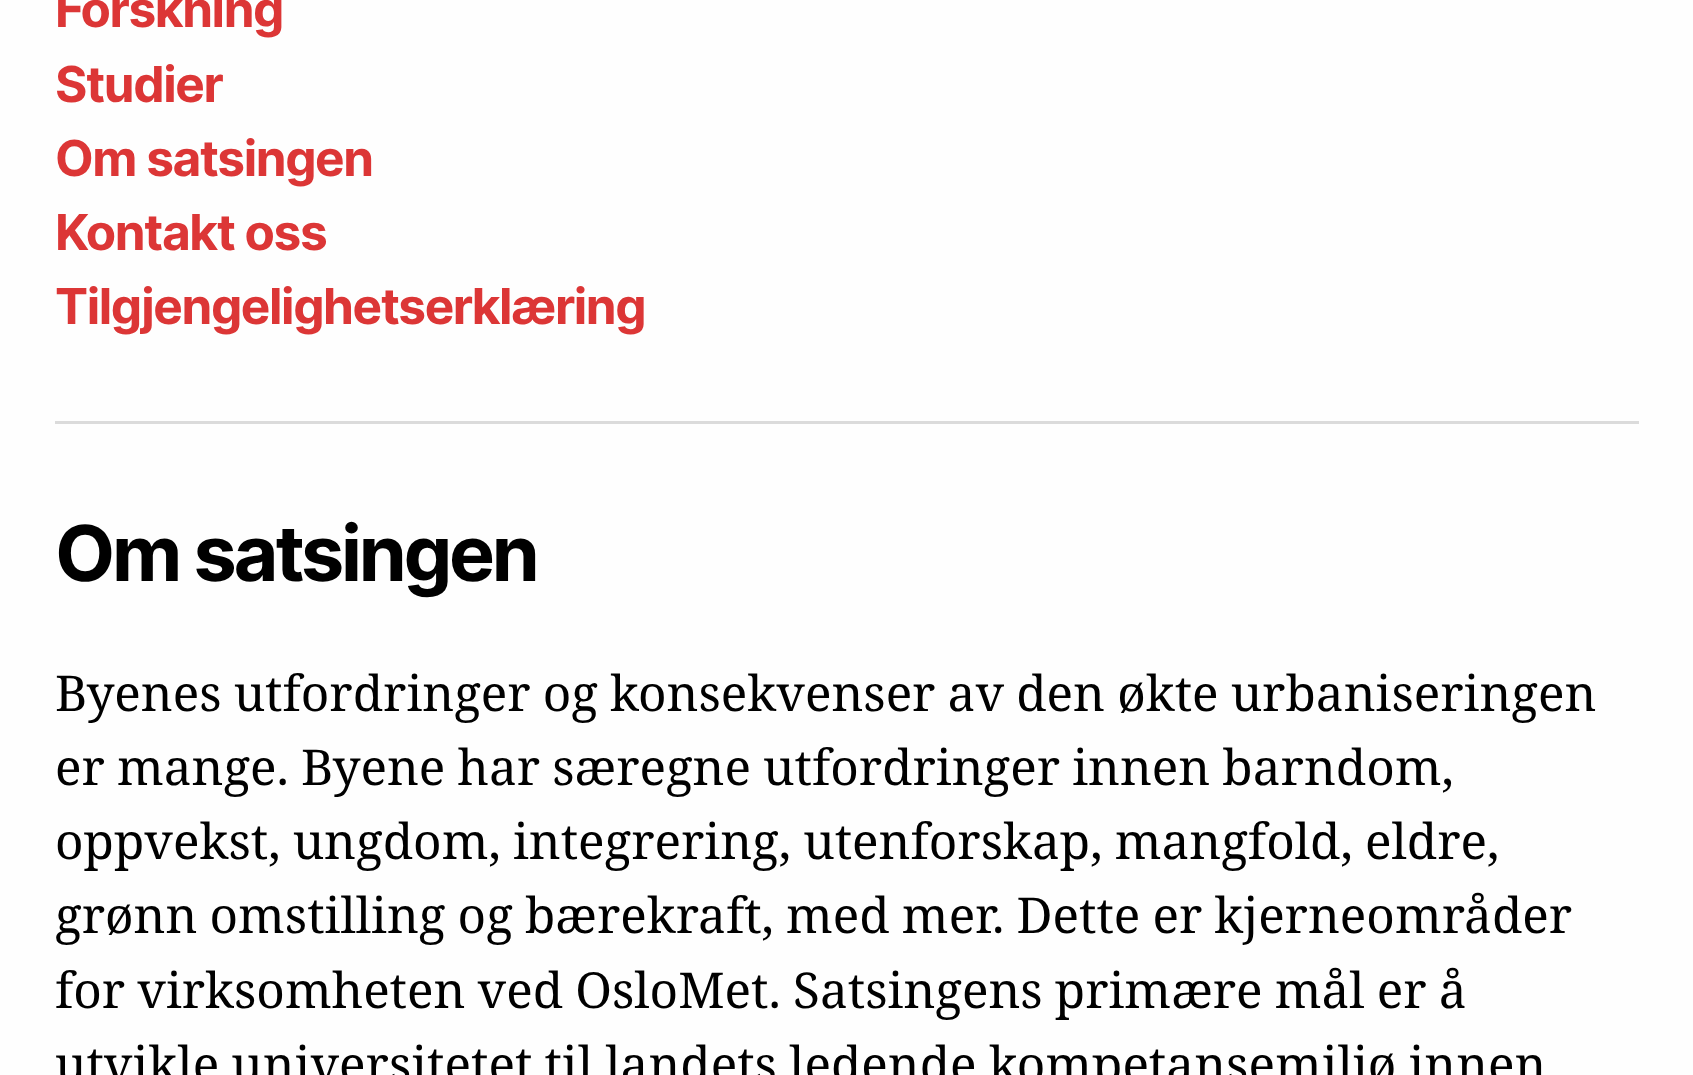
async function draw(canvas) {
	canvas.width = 1693;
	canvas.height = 1075;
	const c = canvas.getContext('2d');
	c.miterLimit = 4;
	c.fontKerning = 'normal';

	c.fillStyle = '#fefefe';
	c.fillRect(0, 0, 1693, 1075);
	c.fillStyle = '#dbdbdb';
	c.fillRect(55, 421, 1584, 3);
	c.letterSpacing = '-1.4px';
	c.font = 'bold 49.5px Inter';
	c.fillStyle = '#dc3636';
	for (const [text, x, y] of [
		['Forskning', 55, 27],
		['Studier', 55, 102],
		['Om satsingen', 55, 176],
		['Kontakt oss', 55, 250],
		['Tilgjengelighetserklæring', 55, 324],
	]) {
		c.fillText(text, x, y);
	}
	c.letterSpacing = '-3.25px';
	c.font = 'bold 77px Inter';
	c.fillStyle = '#000';
	c.fillText('Om satsingen', 55, 581);
	c.letterSpacing = '0px';
	c.wordSpacing = '-0.75px';
	c.font = '49.5px Noto Serif';
	for (const [text, x, y] of [
		['Byenes utfordringer og konsekvenser av den økte urbaniseringen', 55, 711],
		['er mange. Byene har særegne utfordringer innen barndom,', 55, 785],
		['oppvekst, ungdom, integrering, utenforskap, mangfold, eldre,', 55, 859],
		['grønn omstilling og bærekraft, med mer. Dette er kjerneområder', 55, 933],
		['for virksomheten ved OsloMet. Satsingens primære mål er å', 55, 1008],
		['utvikle universitetet til landets ledende kompetansemiljø innen', 55, 1082],
	]) {
		c.fillText(text, x, y);
	}
}

draw(document.querySelector('canvas'));
